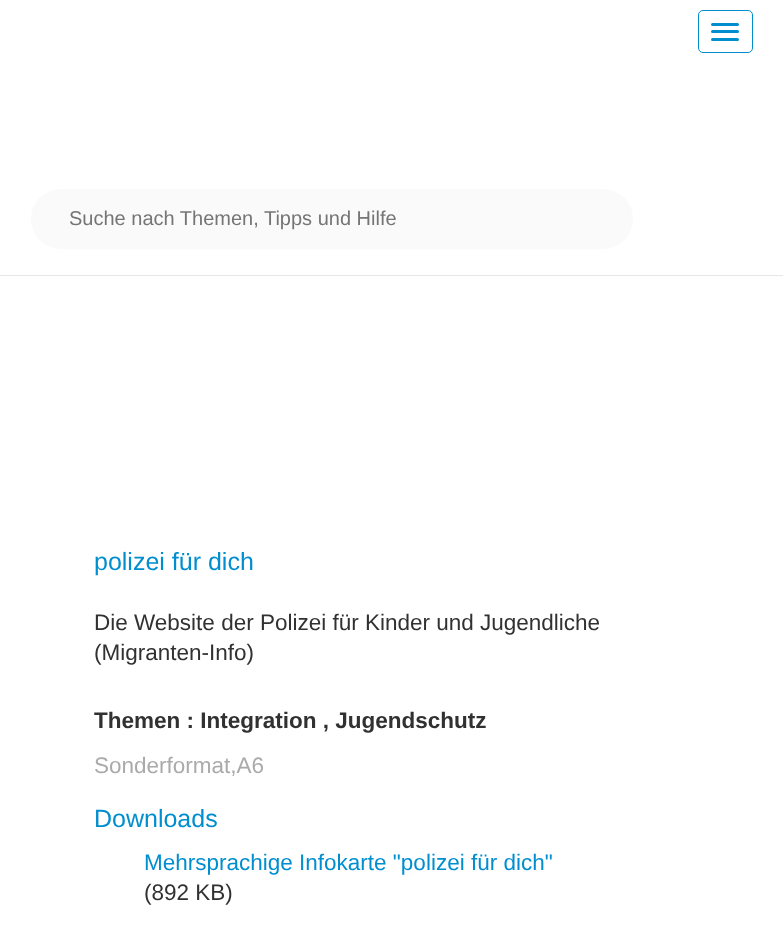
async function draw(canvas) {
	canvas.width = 783;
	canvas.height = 929;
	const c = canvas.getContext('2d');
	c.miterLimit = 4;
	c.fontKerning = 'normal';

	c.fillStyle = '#fff';
	c.fillRect(0, 0, 783, 929);
	c.fillStyle = '#e7e7e7';
	c.fillRect(0, 275, 783, 1);
	c.beginPath();
	c.roundRect(698.5, 10.5, 54, 42, 4.5);
	c.strokeStyle = '#008ecf';
	c.stroke();
	c.fillStyle = '#008ecf';
	c.beginPath();
	c.roundRect(711, 23, 28, 3, 1.5);
	c.fill();
	c.beginPath();
	c.roundRect(711, 30, 28, 3, 1.5);
	c.fill();
	c.beginPath();
	c.roundRect(711, 38, 28, 3, 1.5);
	c.fill();
	c.fillStyle = '#fafafa';
	c.beginPath();
	c.roundRect(31, 189, 602, 60, 30);
	c.fill();
	c.font = '20px Liberation Sans';
	c.fillStyle = '#757575';
	c.fillText('Suche nach Themen, Tipps und Hilfe', 69, 225);
	c.font = '25px Liberation Sans';
	c.fillStyle = '#008ecf';
	c.fillText('polizei für dich', 94, 570);
	c.font = '22.5px Liberation Sans';
	c.fillStyle = '#313131';
	c.fillText('Die Website der Polizei für Kinder und Jugendliche', 94, 630);
	c.fillText('(Migranten-Info)', 94, 660);
	c.font = 'bold 22.5px Liberation Sans';
	c.fillText('Themen : Integration , Jugendschutz', 94, 728);
	c.font = '22.5px Liberation Sans';
	c.fillStyle = '#aaa';
	c.fillText('Sonderformat,A6', 94, 773);
	c.font = '25px Liberation Sans';
	c.fillStyle = '#008ecf';
	c.fillText('Downloads', 94, 827);
	c.font = '22.5px Liberation Sans';
	c.fillText('Mehrsprachige Infokarte "polizei für dich"', 144, 870);
	c.fillStyle = '#313131';
	c.fillText('(892 KB)', 144, 900);
}

draw(document.querySelector('canvas'));
